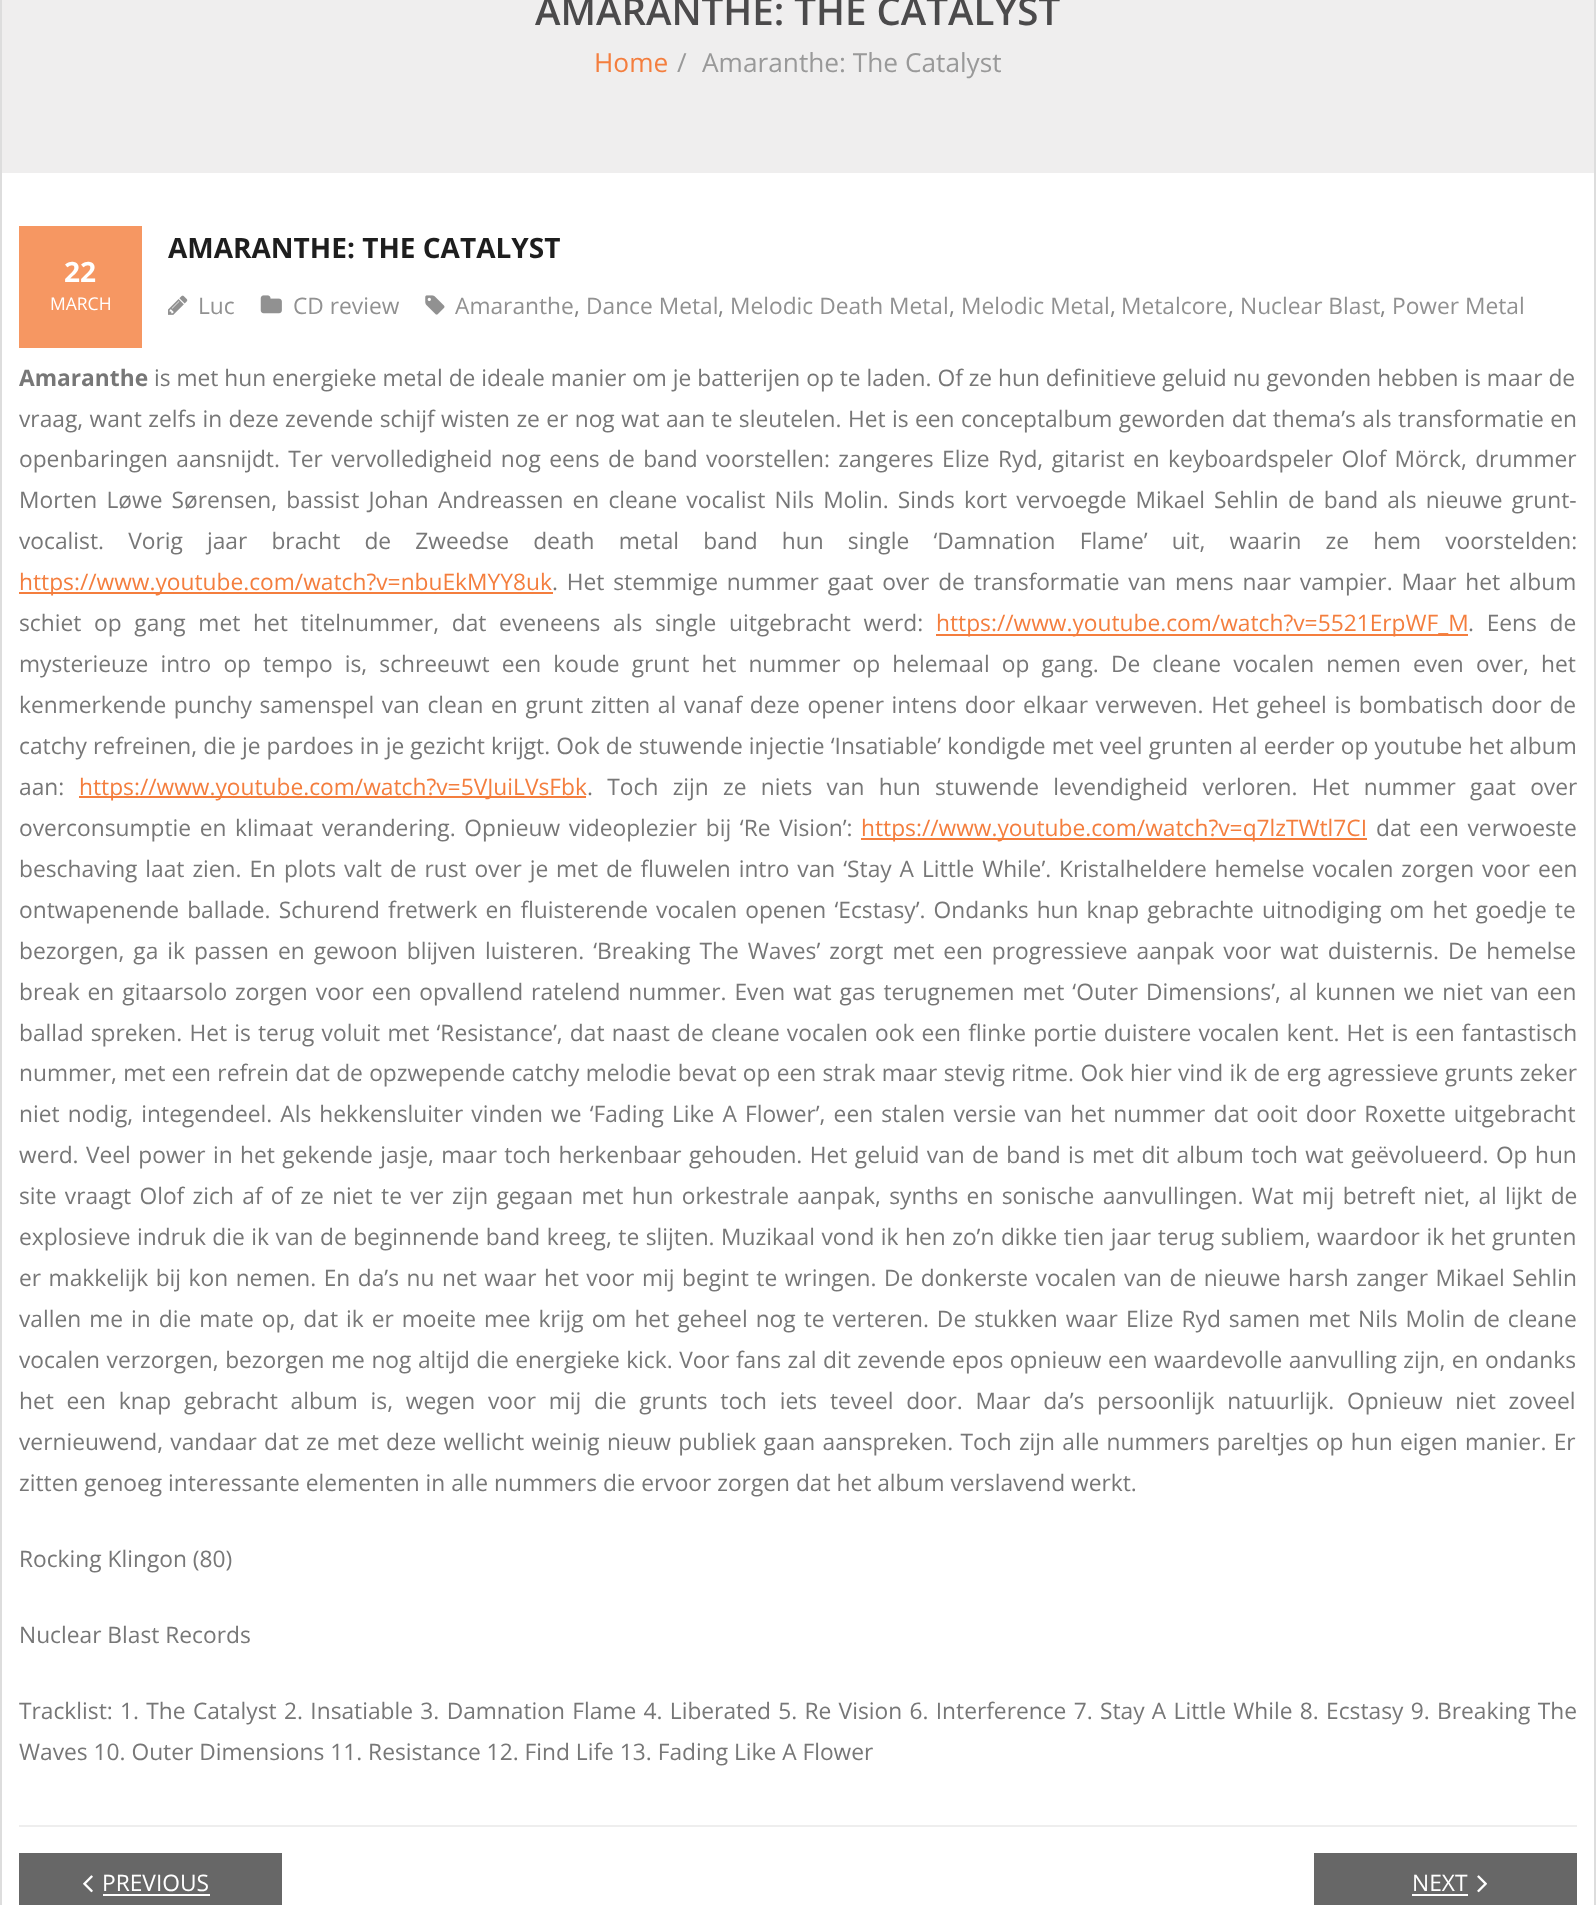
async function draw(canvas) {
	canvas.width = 1596;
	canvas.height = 1905;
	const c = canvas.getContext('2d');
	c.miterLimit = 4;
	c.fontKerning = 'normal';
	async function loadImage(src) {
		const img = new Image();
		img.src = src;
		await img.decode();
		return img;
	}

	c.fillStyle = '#fff';
	c.fillRect(0, 0, 1596, 1905);
	c.strokeStyle = '#ddd';
	c.lineWidth = 2;
	c.strokeRect(1, -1, 1594, 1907);
	c.fillStyle = '#efeeee';
	c.fillRect(2, 0, 1592, 173);
	c.font = '600 38.5px Open Sans';
	c.fillStyle = '#4b4a4b';
	c.fillText('AMARANTHE: THE CATALYST', 535, 25);
	c.font = '26.25px Open Sans';
	c.fillStyle = '#f47e3e';
	c.fillText('Home', 594, 72);
	c.fillStyle = '#999';
	c.fillText('/', 677, 72);
	c.fillText('Amaranthe: The Catalyst', 702, 72);
	c.font = 'bold 28px Open Sans';
	c.fillStyle = '#1e1e1e';
	c.fillText('AMARANTHE: THE CATALYST', 168, 258);
	c.fillStyle = '#f69762';
	c.fillRect(19, 226, 123, 122);
	c.fillStyle = '#fff';
	c.fillText('22', 64, 282);
	c.font = '17.5px Open Sans';
	c.fillText('MARCH', 50, 310);
	c.drawImage(await loadImage('img1.png'), 168, 295, 20, 20);
	c.font = '22.75px Open Sans';
	c.fillStyle = '#919191';
	c.fillText('Luc', 198, 314);
	c.drawImage(await loadImage('img2.png'), 260, 295, 22, 19);
	c.fillText('CD review', 293, 314);
	c.drawImage(await loadImage('img3.png'), 425, 295, 20, 20);
	c.fillText('Amaranthe', 455, 314);
	c.fillStyle = '#858585';
	c.fillText(',', 574, 314);
	c.fillStyle = '#919191';
	c.fillText('Dance Metal', 586, 314);
	c.fillStyle = '#858585';
	c.fillText(',', 718, 314);
	c.fillStyle = '#919191';
	c.fillText('Melodic Death Metal', 730, 314);
	c.fillStyle = '#858585';
	c.fillText(',', 949, 314);
	c.fillStyle = '#919191';
	c.fillText('Melodic Metal', 961, 314);
	c.fillStyle = '#858585';
	c.fillText(',', 1110, 314);
	c.fillStyle = '#919191';
	c.fillText('Metalcore', 1121, 314);
	c.fillStyle = '#858585';
	c.fillText(',', 1228, 314);
	c.fillStyle = '#919191';
	c.fillText('Nuclear Blast', 1240, 314);
	c.fillStyle = '#858585';
	c.fillText(',', 1380, 314);
	c.fillStyle = '#919191';
	c.fillText('Power Metal', 1392, 314);
	c.font = 'bold 22.75px Open Sans';
	c.fillStyle = '#777';
	c.fillText('Amaranthe', 19, 386);
	c.font = '22.75px Open Sans';
	c.fillText('is met hun energieke metal de ideale manier om je batterijen op te laden. Of ze hun definitieve geluid nu gevonden hebben is maar de', 154, 386);
	c.wordSpacing = '0.5px';
	c.fillText('vraag, want zelfs in deze zevende schijf wisten ze er nog wat aan te sleutelen. Het is een conceptalbum geworden dat thema’s als transformatie en', 19, 427);
	c.wordSpacing = '2.5px';
	c.fillText('openbaringen aansnijdt. Ter vervolledigheid nog eens de band voorstellen: zangeres Elize Ryd, gitarist en keyboardspeler Olof Mörck, drummer', 19, 467);
	c.wordSpacing = '3.25px';
	c.fillText('Morten Løwe Sørensen, bassist Johan Andreassen en cleane vocalist Nils Molin. Sinds kort vervoegde Mikael Sehlin de band als nieuwe grunt-', 19, 508);
	c.wordSpacing = '18.25px';
	c.fillText('vocalist. Vorig jaar bracht de Zweedse death metal band hun single ‘Damnation Flame’ uit, waarin ze hem voorstelden:', 19, 549);
	c.fillStyle = '#f47e3e';
	c.fillRect(19, 592, 534, 2);
	c.wordSpacing = '0px';
	c.fillText('https://www.youtube.com/watch?v=nbuEkMYY8uk', 19, 590);
	c.wordSpacing = '2.9px';
	c.fillStyle = '#777';
	c.fillText('. Het stemmige nummer gaat over de transformatie van mens naar vampier. Maar het album', 552, 590);
	c.wordSpacing = '6.8px';
	c.fillText('schiet op gang met het titelnummer, dat eveneens als single uitgebracht werd:', 19, 631);
	c.fillStyle = '#f47e3e';
	c.fillRect(936, 634, 532, 2);
	c.wordSpacing = '0px';
	c.fillText('https://www.youtube.com/watch?v=5521ErpWF_M', 936, 631);
	c.wordSpacing = '6.8px';
	c.fillStyle = '#777';
	c.fillText('. Eens de', 1468, 631);
	c.wordSpacing = '6.2px';
	c.fillText('mysterieuze intro op tempo is, schreeuwt een koude grunt het nummer op helemaal op gang. De cleane vocalen nemen even over, het', 19, 672);
	c.wordSpacing = '1.75px';
	c.fillText('kenmerkende punchy samenspel van clean en grunt zitten al vanaf deze opener intens door elkaar verweven. Het geheel is bombatisch door de', 19, 713);
	c.wordSpacing = '0.25px';
	c.fillText('catchy refreinen, die je pardoes in je gezicht krijgt. Ook de stuwende injectie ‘Insatiable’ kondigde met veel grunten al eerder op youtube het album', 19, 754);
	c.wordSpacing = '0px';
	c.fillText('aan:', 19, 795);
	c.fillStyle = '#f47e3e';
	c.fillRect(79, 796, 507, 2);
	c.fillText('https://www.youtube.com/watch?v=5VJuiLVsFbk', 79, 795);
	c.wordSpacing = '8.4px';
	c.fillStyle = '#777';
	c.fillText('. Toch zijn ze niets van hun stuwende levendigheid verloren. Het nummer gaat over', 587, 795);
	c.wordSpacing = '2.75px';
	c.fillText('overconsumptie en klimaat verandering. Opnieuw videoplezier bij ‘Re Vision’:', 19, 836);
	c.fillStyle = '#f47e3e';
	c.fillRect(861, 838, 506, 2);
	c.wordSpacing = '0px';
	c.fillText('https://www.youtube.com/watch?v=q7lzTWtl7CI', 861, 836);
	c.wordSpacing = '2.75px';
	c.fillStyle = '#777';
	c.fillText('dat een verwoeste', 1376, 836);
	c.wordSpacing = '2px';
	c.fillText('beschaving laat zien. En plots valt de rust over je met de fluwelen intro van ‘Stay A Little While’. Kristalheldere hemelse vocalen zorgen voor een', 19, 877);
	c.wordSpacing = '2.2px';
	c.fillText('ontwapenende ballade. Schurend fretwerk en fluisterende vocalen openen ‘Ecstasy’. Ondanks hun knap gebrachte uitnodiging om het goedje te', 19, 918);
	c.wordSpacing = '3.1px';
	c.fillText('bezorgen, ga ik passen en gewoon blijven luisteren. ‘Breaking The Waves’ zorgt met een progressieve aanpak voor wat duisternis. De hemelse', 19, 959);
	c.wordSpacing = '2.1px';
	c.fillText('break en gitaarsolo zorgen voor een opvallend ratelend nummer. Even wat gas terugnemen met ‘Outer Dimensions’, al kunnen we niet van een', 19, 1000);
	c.wordSpacing = '1.25px';
	c.fillText('ballad spreken. Het is terug voluit met ‘Resistance’, dat naast de cleane vocalen ook een flinke portie duistere vocalen kent. Het is een fantastisch', 19, 1041);
	c.wordSpacing = '0.4px';
	c.fillText('nummer, met een refrein dat de opzwepende catchy melodie bevat op een strak maar stevig ritme. Ook hier vind ik de erg agressieve grunts zeker', 19, 1081);
	c.wordSpacing = '2.2px';
	c.fillText('niet nodig, integendeel. Als hekkensluiter vinden we ‘Fading Like A Flower’, een stalen versie van het nummer dat ooit door Roxette uitgebracht', 19, 1122);
	c.wordSpacing = '1.5px';
	c.fillText('werd. Veel power in het gekende jasje, maar toch herkenbaar gehouden. Het geluid van de band is met dit album toch wat geëvolueerd. Op hun', 19, 1163);
	c.wordSpacing = '2.4px';
	c.fillText('site vraagt Olof zich af of ze niet te ver zijn gegaan met hun orkestrale aanpak, synths en sonische aanvullingen. Wat mij betreft niet, al lijkt de', 19, 1204);
	c.wordSpacing = '0.6px';
	c.fillText('explosieve indruk die ik van de beginnende band kreeg, te slijten. Muzikaal vond ik hen zo’n dikke tien jaar terug subliem, waardoor ik het grunten', 19, 1245);
	c.wordSpacing = '1.6px';
	c.fillText('er makkelijk bij kon nemen. En da’s nu net waar het voor mij begint te wringen. De donkerste vocalen van de nieuwe harsh zanger Mikael Sehlin', 19, 1286);
	c.wordSpacing = '2.1px';
	c.fillText('vallen me in die mate op, dat ik er moeite mee krijg om het geheel nog te verteren. De stukken waar Elize Ryd samen met Nils Molin de cleane', 19, 1327);
	c.wordSpacing = '0.6px';
	c.fillText('vocalen verzorgen, bezorgen me nog altijd die energieke kick. Voor fans zal dit zevende epos opnieuw een waardevolle aanvulling zijn, en ondanks', 19, 1368);
	c.wordSpacing = '6.8px';
	c.fillText('het een knap gebracht album is, wegen voor mij die grunts toch iets teveel door. Maar da’s persoonlijk natuurlijk. Opnieuw niet zoveel', 19, 1409);
	c.wordSpacing = '1.4px';
	c.fillText('vernieuwend, vandaar dat ze met deze wellicht weinig nieuw publiek gaan aanspreken. Toch zijn alle nummers pareltjes op hun eigen manier. Er', 19, 1450);
	c.wordSpacing = '0px';
	for (const [text, x, y] of [
		['zitten genoeg interessante elementen in alle nummers die ervoor zorgen dat het album verslavend werkt.', 19, 1491],
		['Rocking Klingon (80)', 19, 1567],
		['Nuclear Blast Records', 19, 1643],
	]) {
		c.fillText(text, x, y);
	}
	c.wordSpacing = '1.4px';
	c.fillText('Tracklist: 1. The Catalyst 2. Insatiable 3. Damnation Flame 4. Liberated 5. Re Vision 6. Interference 7. Stay A Little While 8. Ecstasy 9. Breaking The', 19, 1719);
	c.wordSpacing = '0px';
	c.fillText('Waves 10. Outer Dimensions 11. Resistance 12. Find Life 13. Fading Like A Flower', 19, 1760);
	c.fillStyle = '#eee';
	c.fillRect(19, 1825, 1558, 2);
	c.fillStyle = '#676767';
	c.fillRect(19, 1853, 263, 52);
	c.drawImage(await loadImage('img4.png'), 83, 1875, 10, 18);
	c.fillStyle = '#fff';
	c.fillText('PREVIOUS', 102, 1891);
	c.fillRect(103, 1894, 107, 2);
	c.fillStyle = '#676767';
	c.fillRect(1314, 1853, 263, 52);
	c.fillStyle = '#fff';
	c.fillText('NEXT', 1412, 1891);
	c.fillRect(1412, 1894, 56, 2);
	c.drawImage(await loadImage('img5.png'), 1477, 1875, 10, 18);
}

draw(document.querySelector('canvas'));
